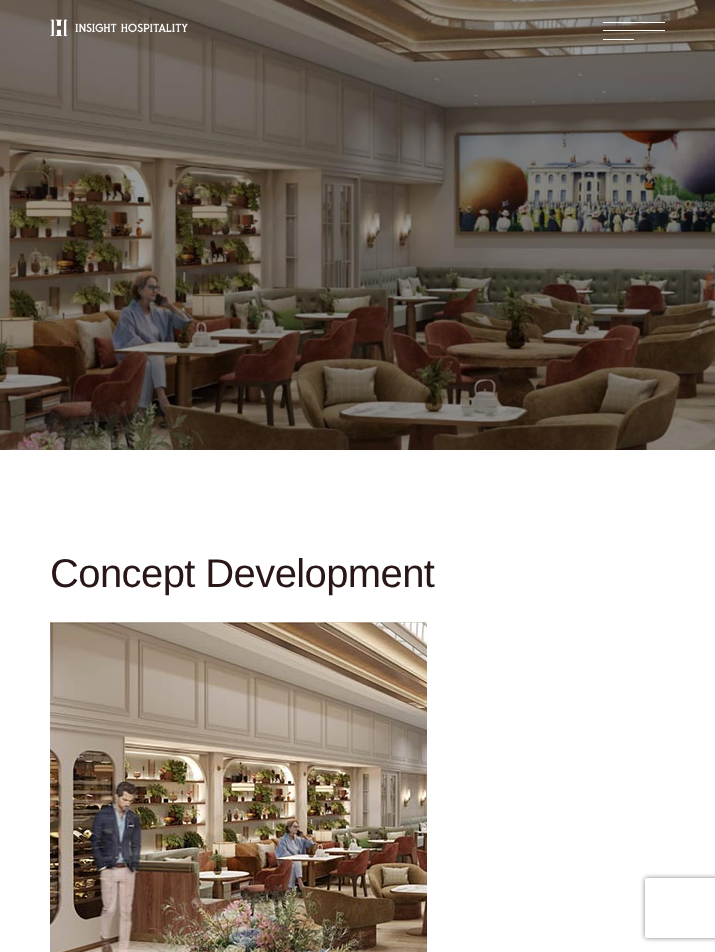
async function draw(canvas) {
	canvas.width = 715;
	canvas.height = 952;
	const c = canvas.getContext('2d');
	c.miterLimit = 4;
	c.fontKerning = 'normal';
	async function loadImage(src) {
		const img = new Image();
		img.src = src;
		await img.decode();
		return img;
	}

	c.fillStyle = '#fff';
	c.fillRect(0, 0, 715, 952);
	c.drawImage(await loadImage('img2.png'), 0, 0, 715, 450);
	c.drawImage(await loadImage('img1.png'), 50, 19, 138, 17);
	for (const [x, y, w, h, color] of [
		[603, 22, 62, 1, '#fff'],
		[603, 30, 62, 1, '#fff'],
		[603, 39, 31, 1, '#fff'],
	]) {
		c.fillStyle = color;
		c.fillRect(x, y, w, h);
	}
	c.letterSpacing = '-0.6px';
	c.font = '40px Liberation Sans';
	c.fillStyle = '#291616';
	c.fillText('Concept Development', 50, 587);
	c.drawImage(await loadImage('img3.png'), 50, 622, 377, 330);
	c.save();
	c.beginPath();
	c.moveTo(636, 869);
	c.lineTo(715, 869);
	c.lineTo(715, 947);
	c.lineTo(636, 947);
	c.closePath();
	c.moveTo(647, 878);
	c.lineTo(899, 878);
	c.bezierCurveTo(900, 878, 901, 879, 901, 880);
	c.lineTo(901, 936);
	c.bezierCurveTo(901, 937, 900, 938, 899, 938);
	c.lineTo(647, 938);
	c.bezierCurveTo(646, 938, 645, 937, 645, 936);
	c.lineTo(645, 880);
	c.bezierCurveTo(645, 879, 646, 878, 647, 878);
	c.closePath();
	c.clip('evenodd');
	c.fillStyle = '#808080';
	c.filter = 'blur(2.5px)';
	c.beginPath();
	c.roundRect(645, 878, 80, 60, 2);
	c.fill();
	c.filter = 'none';
	c.restore();
}

draw(document.querySelector('canvas'));
